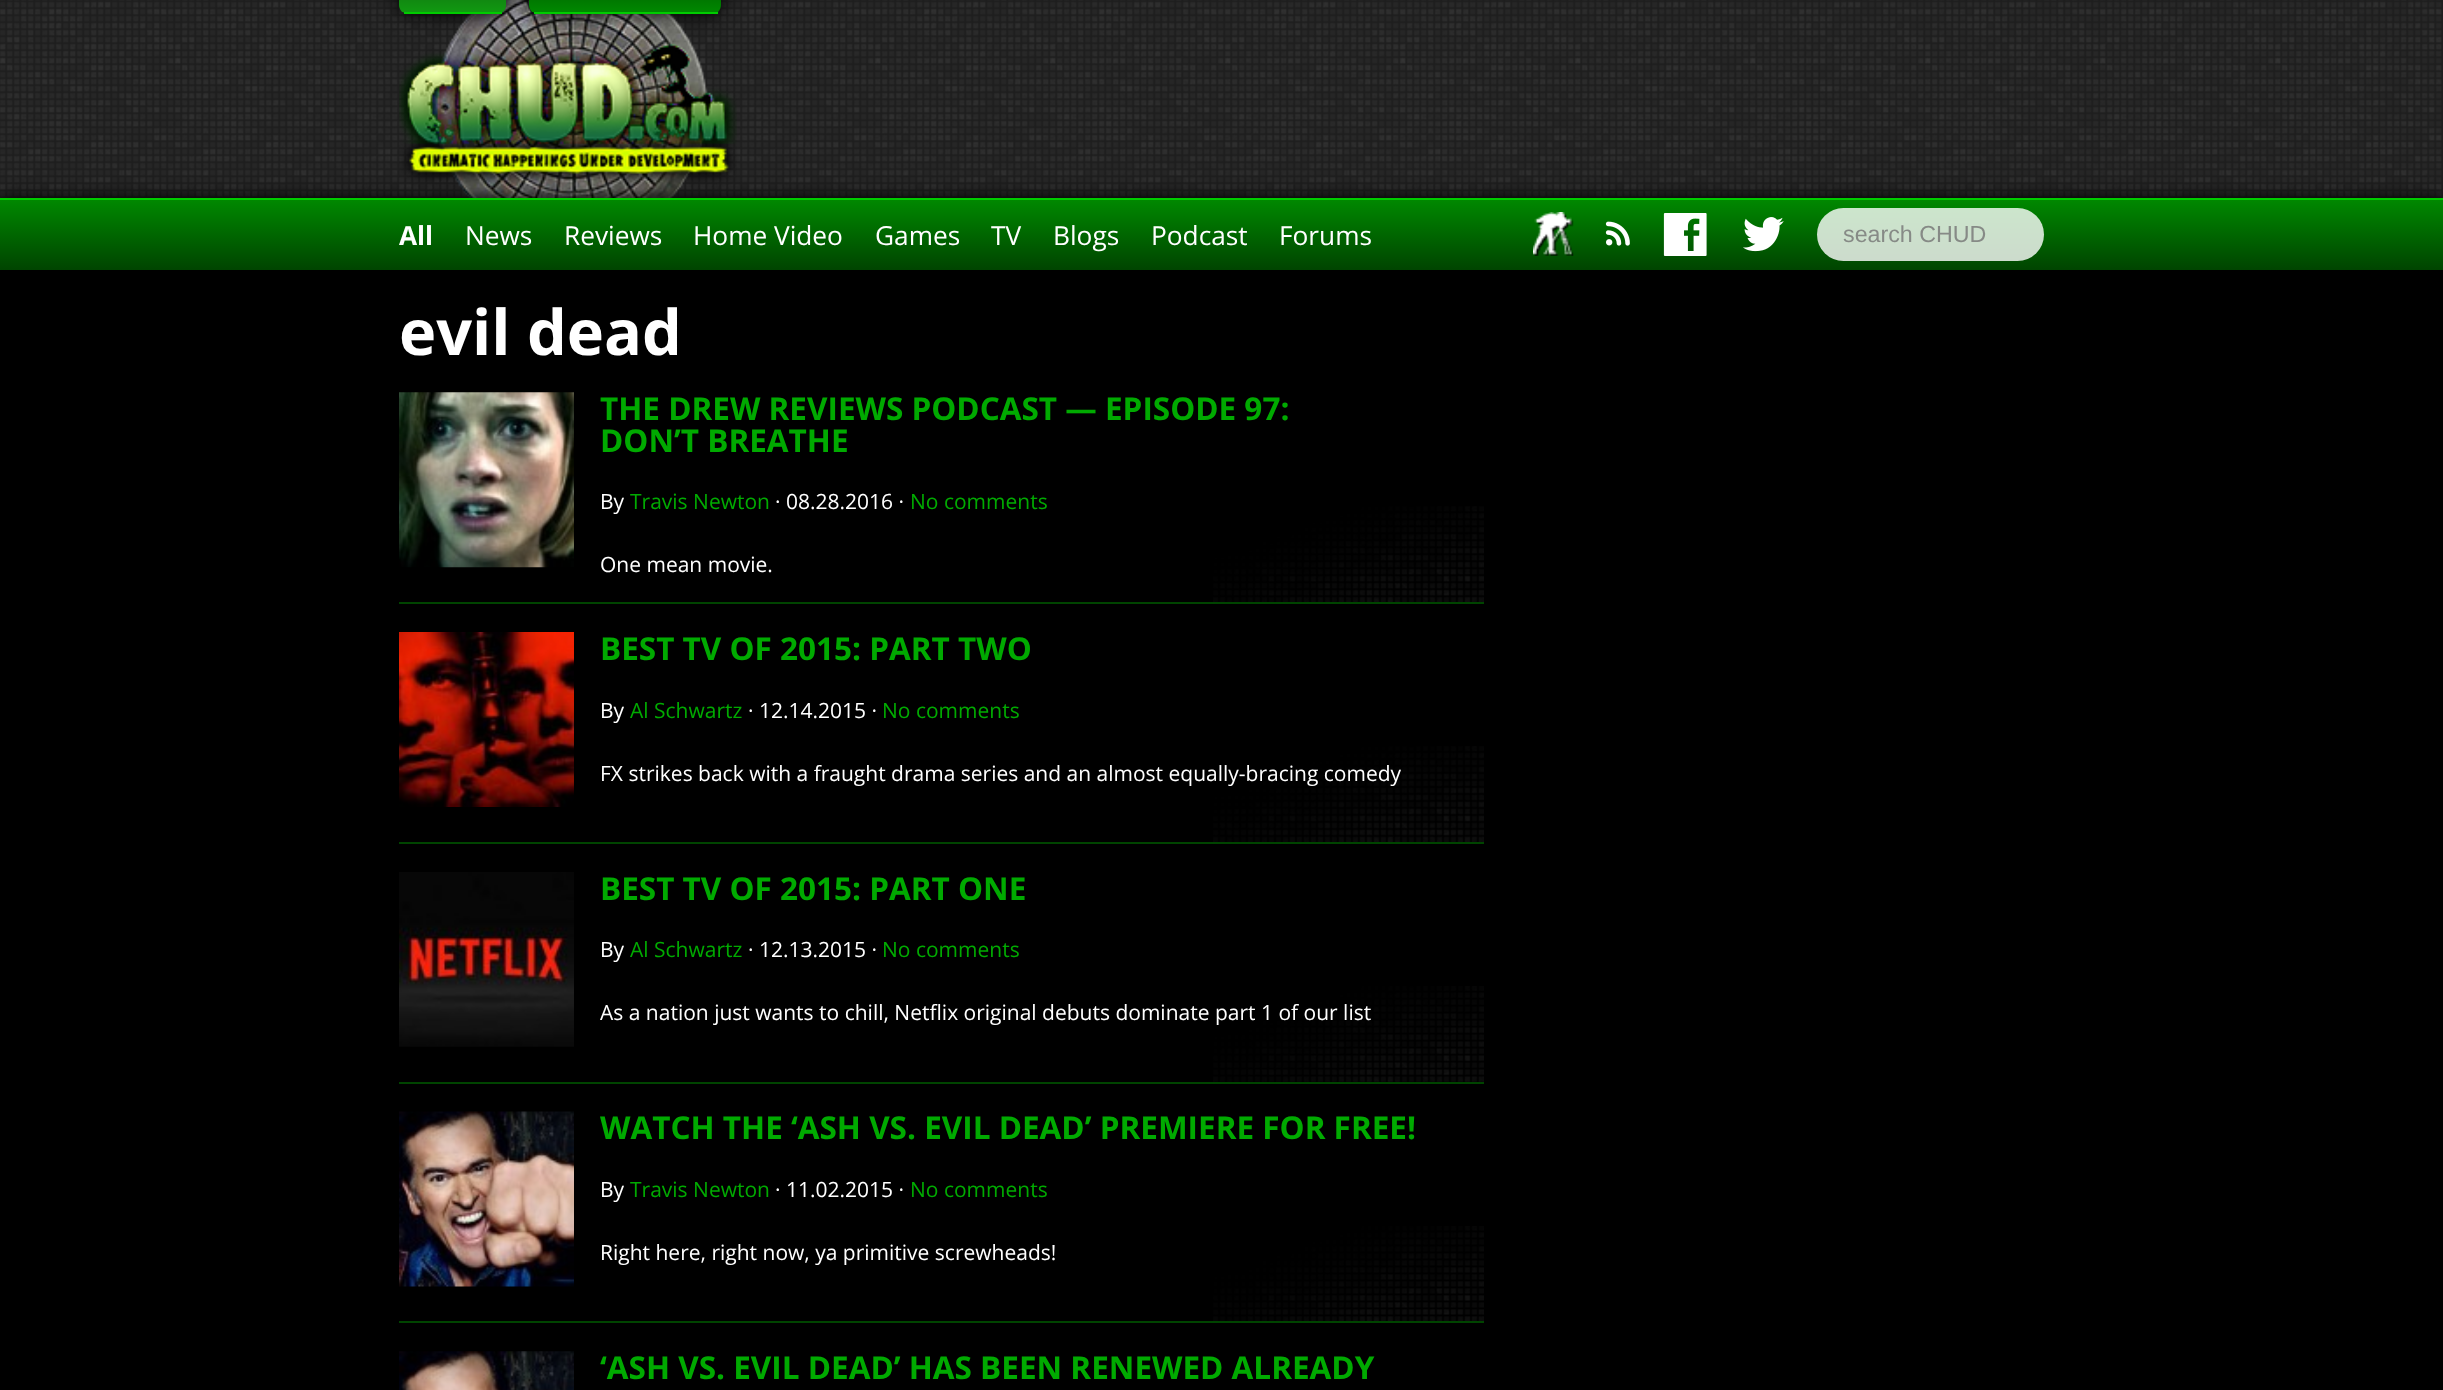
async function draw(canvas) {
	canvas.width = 2443;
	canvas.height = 1390;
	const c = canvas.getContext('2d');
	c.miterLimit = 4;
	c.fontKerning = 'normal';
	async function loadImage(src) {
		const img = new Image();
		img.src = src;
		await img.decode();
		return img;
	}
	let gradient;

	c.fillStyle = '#000';
	c.fillRect(0, 0, 2443, 1390);
	c.fillStyle = '#1e1e1e';
	c.fillRect(0, 0, 2443, 198);
	c.drawImage(await loadImage('img1.png'), 0, 0, 2442, 197);
	c.drawImage(await loadImage('img2.png'), 399, 0, 338, 198);
	c.fillStyle = '#000';
	c.filter = 'blur(9px)';
	c.beginPath();
	c.roundRect(399, -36, 107, 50, 9);
	c.fill();
	c.filter = 'none';
	c.save();
	c.beginPath();
	c.moveTo(399, -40);
	c.lineTo(506, -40);
	c.lineTo(506, 5);
	c.bezierCurveTo(506, 10, 502, 14, 497, 14);
	c.lineTo(408, 14);
	c.bezierCurveTo(403, 14, 399, 10, 399, 5);
	c.closePath();
	c.clip();
	gradient = c.createLinearGradient(399, 12, 399, -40);
	gradient.addColorStop(0, '#191');
	gradient.addColorStop(1, '#151');
	c.fillStyle = gradient;
	c.fillRect(399, 0, 107, 12);
	gradient = c.createLinearGradient(399, 65, 399, 12);
	gradient.addColorStop(0, '#191');
	gradient.addColorStop(1, '#151');
	c.fillStyle = gradient;
	c.fillRect(399, 12, 107, 1);
	c.restore();
	c.fillStyle = '#0c0';
	c.fillRect(404, 12, 98, 2);
	c.fillStyle = '#000';
	c.filter = 'blur(9px)';
	c.beginPath();
	c.roundRect(529, -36, 192, 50, 9);
	c.fill();
	c.filter = 'none';
	c.save();
	c.beginPath();
	c.moveTo(529, -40);
	c.lineTo(721, -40);
	c.lineTo(721, 5);
	c.bezierCurveTo(721, 10, 717, 14, 712, 14);
	c.lineTo(538, 14);
	c.bezierCurveTo(533, 14, 529, 10, 529, 5);
	c.closePath();
	c.clip();
	gradient = c.createLinearGradient(529, 12, 529, -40);
	gradient.addColorStop(0, '#080');
	gradient.addColorStop(1, '#040');
	c.fillStyle = gradient;
	c.fillRect(529, 0, 192, 12);
	gradient = c.createLinearGradient(529, 65, 529, 12);
	gradient.addColorStop(0, '#080');
	gradient.addColorStop(1, '#040');
	c.fillStyle = gradient;
	c.fillRect(529, 12, 5, 1);
	c.restore();
	c.fillStyle = '#0c0';
	c.fillRect(534, 12, 184, 2);
	c.fillStyle = '#000';
	c.filter = 'blur(9px)';
	c.beginPath();
	c.rect(0, 198, 2443, 72);
	c.fill();
	c.filter = 'none';
	gradient = c.createLinearGradient(0, 270, 0, 200);
	gradient.addColorStop(0, '#040');
	gradient.addColorStop(1, '#080');
	c.fillStyle = gradient;
	c.fillRect(0, 200, 2443, 70);
	c.fillStyle = '#0c0';
	c.fillRect(0, 198, 2443, 2);
	c.font = 'bold 26.25px Open Sans';
	c.fillStyle = '#fff';
	c.fillText('All', 399, 245);
	c.font = '26.25px Open Sans';
	for (const [text, x, y] of [
		['News', 465, 245],
		['Reviews', 564, 245],
		['Home Video', 693, 245],
		['Games', 875, 245],
		['TV', 991, 245],
		['Blogs', 1053, 245],
		['Podcast', 1151, 245],
		['Forums', 1279, 245],
	]) {
		c.fillText(text, x, y);
	}
	c.drawImage(await loadImage('img3.png'), 1533, 212, 41, 44);
	c.drawImage(await loadImage('img4.png'), 1605, 221, 25, 25);
	c.drawImage(await loadImage('img5.png'), 1663, 213, 44, 43);
	c.drawImage(await loadImage('img6.png'), 1743, 217, 41, 35);
	c.fillStyle = '#ffffffcc';
	c.beginPath();
	c.roundRect(1817, 208, 227, 53, 26.5);
	c.fill();
	c.font = '23.25px Liberation Sans';
	c.fillStyle = '#868a86';
	c.fillText('search CHUD', 1843, 242);
	c.font = 'bold 63px Open Sans';
	c.fillStyle = '#fff';
	c.fillText('evil dead', 399, 355);
	c.drawImage(await loadImage('img7.png'), 1213, 506, 271, 96);
	c.fillStyle = '#040';
	c.fillRect(399, 602, 1085, 2);
	c.drawImage(await loadImage('img8.png'), 399, 392, 175, 176);
	c.font = 'bold 31.5px Open Sans';
	c.fillStyle = '#0a0';
	c.fillText('THE DREW REVIEWS PODCAST — EPISODE 97:', 600, 420);
	c.fillText('DON’T BREATHE', 600, 452);
	c.font = '21px Open Sans';
	c.fillStyle = '#fff';
	c.fillText('By', 600, 509);
	c.fillStyle = '#0a0';
	c.fillText('Travis Newton', 630, 509);
	c.fillStyle = '#fff';
	c.fillText('· 08.28.2016 ·', 775, 509);
	c.fillStyle = '#0a0';
	c.fillText('No comments', 910, 509);
	c.fillStyle = '#fff';
	c.fillText('One mean movie.', 600, 572);
	c.drawImage(await loadImage('img9.png'), 1213, 746, 271, 96);
	c.fillStyle = '#040';
	c.fillRect(399, 842, 1085, 2);
	c.drawImage(await loadImage('img10.png'), 399, 632, 175, 175);
	c.font = 'bold 31.5px Open Sans';
	c.fillStyle = '#0a0';
	c.fillText('BEST TV OF 2015: PART TWO', 600, 660);
	c.font = '21px Open Sans';
	c.fillStyle = '#fff';
	c.fillText('By', 600, 718);
	c.fillStyle = '#0a0';
	c.fillText('Al Schwartz', 630, 718);
	c.fillStyle = '#fff';
	c.fillText('· 12.14.2015 ·', 748, 718);
	c.fillStyle = '#0a0';
	c.fillText('No comments', 882, 718);
	c.fillStyle = '#fff';
	c.fillText('FX strikes back with a fraught drama series and an almost equally-bracing comedy', 600, 781);
	c.drawImage(await loadImage('img11.png'), 1213, 986, 271, 96);
	c.fillStyle = '#040';
	c.fillRect(399, 1082, 1085, 2);
	c.drawImage(await loadImage('img12.png'), 399, 872, 175, 175);
	c.font = 'bold 31.5px Open Sans';
	c.fillStyle = '#0a0';
	c.fillText('BEST TV OF 2015: PART ONE', 600, 900);
	c.font = '21px Open Sans';
	c.fillStyle = '#fff';
	c.fillText('By', 600, 957);
	c.fillStyle = '#0a0';
	c.fillText('Al Schwartz', 630, 957);
	c.fillStyle = '#fff';
	c.fillText('· 12.13.2015 ·', 748, 957);
	c.fillStyle = '#0a0';
	c.fillText('No comments', 882, 957);
	c.fillStyle = '#fff';
	c.fillText('As a nation just wants to chill, Netflix original debuts dominate part 1 of our list', 600, 1020);
	c.drawImage(await loadImage('img13.png'), 1213, 1226, 271, 95);
	c.fillStyle = '#040';
	c.fillRect(399, 1321, 1085, 2);
	c.drawImage(await loadImage('img14.png'), 399, 1111, 175, 176);
	c.font = 'bold 31.5px Open Sans';
	c.fillStyle = '#0a0';
	c.fillText('WATCH THE ‘ASH VS. EVIL DEAD’ PREMIERE FOR FREE!', 600, 1139);
	c.font = '21px Open Sans';
	c.fillStyle = '#fff';
	c.fillText('By', 600, 1197);
	c.fillStyle = '#0a0';
	c.fillText('Travis Newton', 630, 1197);
	c.fillStyle = '#fff';
	c.fillText('· 11.02.2015 ·', 775, 1197);
	c.fillStyle = '#0a0';
	c.fillText('No comments', 910, 1197);
	c.fillStyle = '#fff';
	c.fillText('Right here, right now, ya primitive screwheads!', 600, 1260);
	c.drawImage(await loadImage('img15.png'), 399, 1351, 175, 39);
	c.font = 'bold 31.5px Open Sans';
	c.fillStyle = '#0a0';
	c.fillText('‘ASH VS. EVIL DEAD’ HAS BEEN RENEWED ALREADY', 600, 1379);
}

draw(document.querySelector('canvas'));
